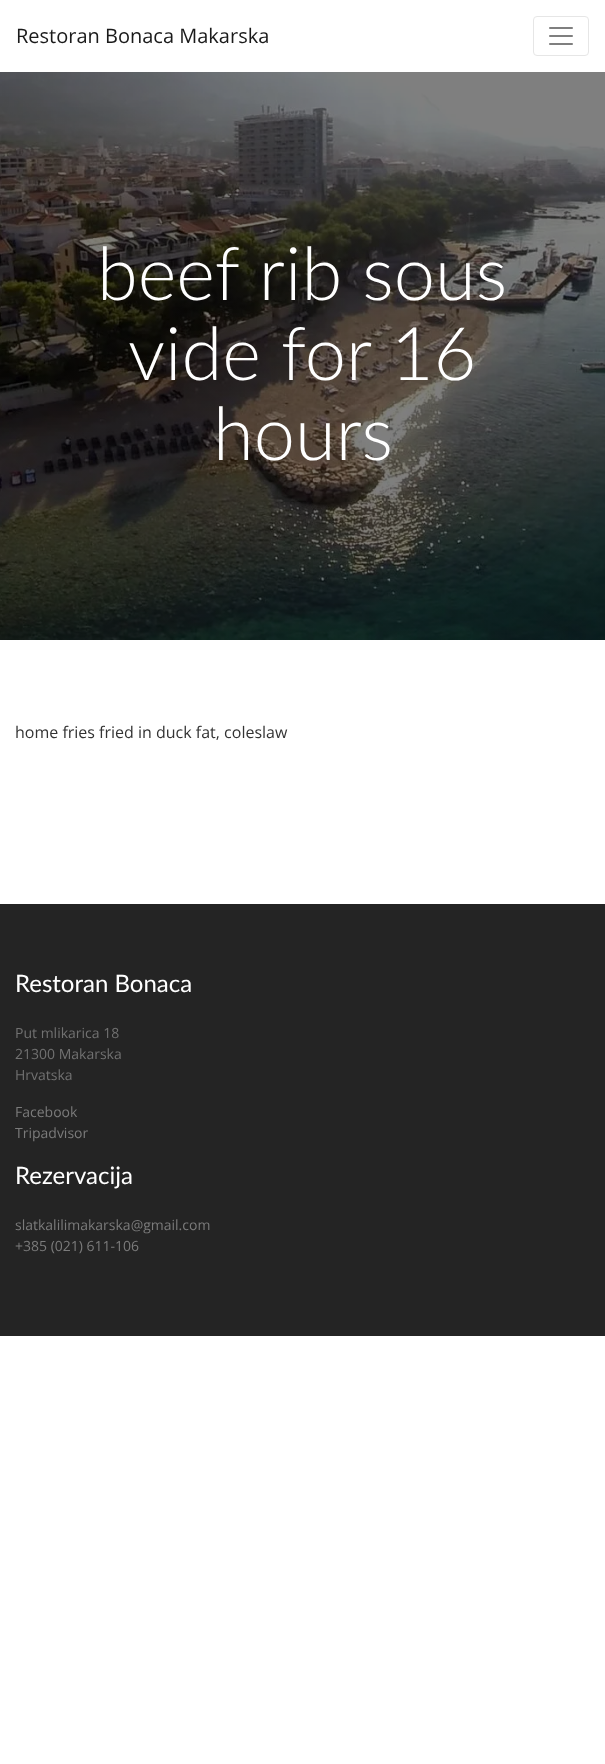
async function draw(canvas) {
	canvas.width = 605;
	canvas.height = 1764;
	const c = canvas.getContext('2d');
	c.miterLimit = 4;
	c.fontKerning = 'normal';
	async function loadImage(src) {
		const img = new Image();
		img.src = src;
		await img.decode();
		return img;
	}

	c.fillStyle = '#fff';
	c.fillRect(0, 0, 605, 1764);
	c.font = '20px Open Sans';
	c.fillStyle = '#1a1a1a';
	c.fillText('Restoran Bonaca Makarska', 16, 43);
	c.beginPath();
	c.roundRect(533.5, 16.5, 55, 39, 3.5);
	c.strokeStyle = '#e6e6e6';
	c.stroke();
	c.drawImage(await loadImage('img1.png'), 549, 27, 24, 18);
	c.drawImage(await loadImage('img2.png'), 0, 72, 605, 568);
	c.font = '300 74px Lato';
	c.fillStyle = '#fff';
	for (const [text, x, y] of [
		['beef rib sous', 97, 300],
		['vide for 16', 128, 380],
		['hours', 213, 460],
	]) {
		c.fillText(text, x, y);
	}
	c.font = '16px Open Sans';
	c.fillStyle = '#333';
	c.fillText('home fries fried in duck fat, coleslaw', 15, 738);
	c.fillStyle = '#242424';
	c.fillRect(0, 904, 605, 432);
	c.font = '24px Lato';
	c.fillStyle = '#fff';
	c.fillText('Restoran Bonaca', 15, 992);
	c.font = '14px Open Sans';
	c.fillStyle = '#717171';
	for (const [text, x, y] of [
		['Put mlikarica 18', 15, 1038],
		['21300 Makarska', 15, 1059],
		['Hrvatska', 15, 1080],
	]) {
		c.fillText(text, x, y);
	}
	c.fillStyle = '#7b7b7b';
	c.fillText('Facebook', 15, 1117);
	c.fillText('Tripadvisor', 15, 1138);
	c.font = '24px Lato';
	c.fillStyle = '#fff';
	c.fillText('Rezervacija', 15, 1184);
	c.font = '14px Open Sans';
	c.fillStyle = '#7b7b7b';
	c.fillText('slatkalilimakarska@gmail.com', 15, 1230);
	c.fillText('+385 (021) 611-106', 15, 1251);
}

draw(document.querySelector('canvas'));
